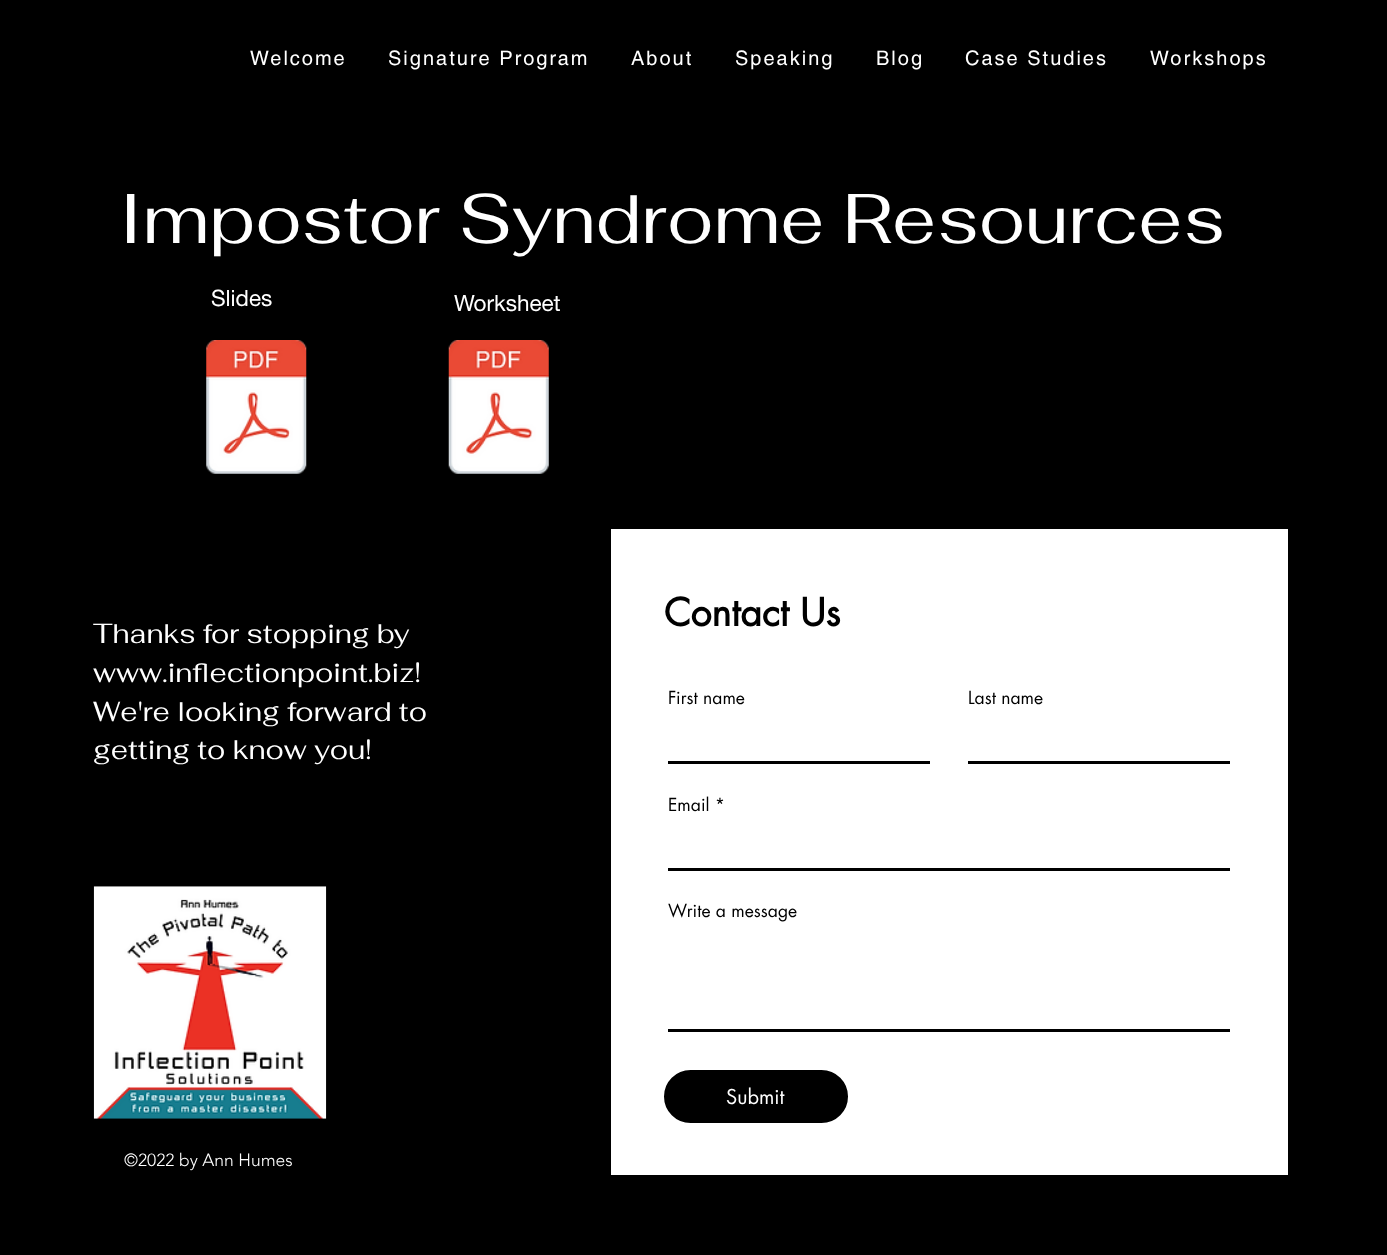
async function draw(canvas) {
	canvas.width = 1387;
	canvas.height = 1255;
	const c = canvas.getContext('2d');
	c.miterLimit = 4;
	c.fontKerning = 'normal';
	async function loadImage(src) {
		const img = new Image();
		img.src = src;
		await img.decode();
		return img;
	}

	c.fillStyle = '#000';
	c.fillRect(0, 0, 1387, 1255);
	c.letterSpacing = '2px';
	c.font = '20px helvetica';
	c.fillStyle = '#fff';
	for (const [text, x, y] of [
		['Welcome', 250, 65],
		['Signature Program', 388, 65],
		['About', 631, 65],
		['Speaking', 735, 65],
		['Blog', 876, 65],
		['Case Studies', 965, 65],
		['Workshops', 1150, 65],
	]) {
		c.fillText(text, x, y);
	}
	c.letterSpacing = '0px';
	c.font = '70px Fahkwang';
	c.fillText('Impostor Syndrome Resources', 119, 243);
	c.font = '22.5px helvetica neue';
	c.fillText('Slides', 211, 306);
	c.fillText('Worksheet', 454, 311);
	c.drawImage(await loadImage('img1.png'), 206, 340, 101, 134);
	c.drawImage(await loadImage('img2.png'), 448, 340, 101, 134);
	c.font = '27.5px Fahkwang';
	for (const [text, x, y] of [
		['Thanks for stopping by', 93, 643],
		['www.inflectionpoint.biz!', 93, 682],
		['We\'re looking forward to', 93, 721],
		['getting to know you!', 93, 759],
	]) {
		c.fillText(text, x, y);
	}
	c.fillRect(611, 529, 677, 646);
	c.font = 'bold 37.5px futura';
	c.fillStyle = '#000';
	c.fillText('Contact Us', 664, 626);
	c.font = '17.5px futura';
	c.fillText('First name', 668, 704);
	c.fillRect(668, 761, 262, 3);
	c.fillText('Last name', 968, 704);
	c.fillRect(968, 761, 262, 3);
	c.fillText('Email *', 668, 811);
	c.fillRect(668, 868, 562, 3);
	c.fillText('Write a message', 668, 917);
	c.fillRect(668, 1029, 562, 3);
	c.beginPath();
	c.roundRect(665.5, 1071.5, 181, 50, 25);
	c.fill();
	c.strokeStyle = '#000';
	c.lineWidth = 3;
	c.stroke();
	c.font = '20px futura';
	c.fillStyle = '#fff';
	c.fillText('Submit', 726, 1104);
	c.drawImage(await loadImage('img3.png'), 93, 886, 234, 233);
	c.font = '300 17.5px "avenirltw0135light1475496"';
	c.fillText('©2022 by Ann Humes', 124, 1166);
}

draw(document.querySelector('canvas'));
